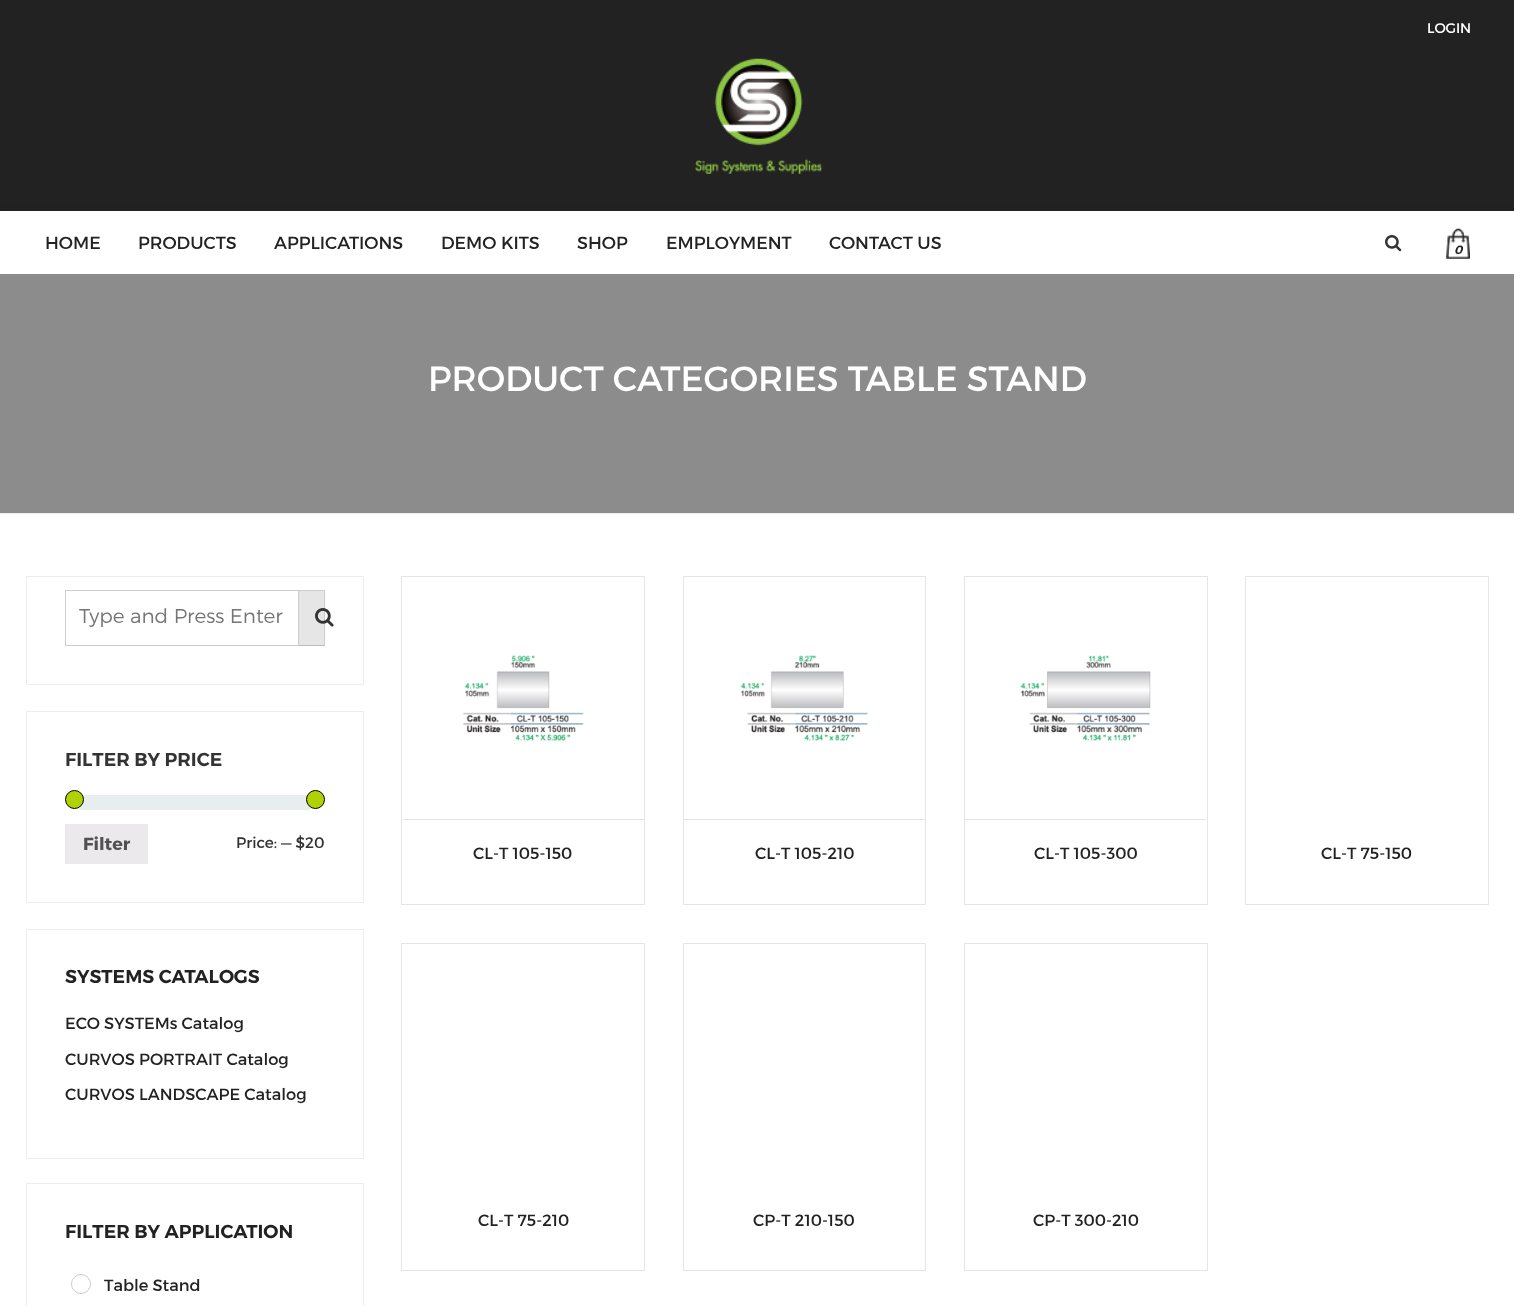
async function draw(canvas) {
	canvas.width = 1514;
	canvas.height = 1306;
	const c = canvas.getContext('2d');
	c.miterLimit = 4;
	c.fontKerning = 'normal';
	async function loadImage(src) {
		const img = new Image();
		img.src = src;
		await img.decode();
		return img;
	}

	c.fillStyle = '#fff';
	c.fillRect(0, 0, 1514, 1306);
	c.fillStyle = '#222';
	c.fillRect(0, 0, 1514, 211);
	c.font = '14px Montserrat';
	c.fillStyle = '#fff';
	c.fillText('LOGIN', 1427, 33);
	c.drawImage(await loadImage('img1.png'), 695, 58, 127, 116);
	c.fillStyle = '#22222233';
	c.filter = 'blur(3px)';
	c.beginPath();
	c.rect(1, 213, 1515, 62);
	c.fill();
	c.filter = 'none';
	c.fillStyle = '#fff';
	c.fillRect(0, 211, 1514, 63);
	c.font = '17.5px Montserrat';
	c.fillStyle = '#222';
	for (const [text, x, y] of [
		['HOME', 45, 249],
		['PRODUCTS', 138, 249],
		['APPLICATIONS', 274, 249],
		['DEMO KITS', 441, 249],
		['SHOP', 577, 249],
		['EMPLOYMENT', 666, 249],
		['CONTACT US', 829, 249],
	]) {
		c.fillText(text, x, y);
	}
	c.drawImage(await loadImage('img2.png'), 1385, 235, 17, 17);
	c.drawImage(await loadImage('img3.png'), 1446, 228, 24, 31);
	c.font = 'italic 600 12px Montserrat';
	c.fillText('0', 1454, 254);
	c.fillStyle = '#eee';
	c.fillRect(0, 513, 1514, 1);
	c.fillStyle = '#8c8c8c';
	c.fillRect(0, 274, 1514, 239);
	c.font = '35px Montserrat';
	c.fillStyle = '#fff';
	c.fillText('PRODUCT CATEGORIES TABLE STAND', 428, 391);
	c.strokeStyle = '#ededed';
	c.strokeRect(26.5, 576.5, 337, 108);
	c.strokeStyle = '#ccc';
	c.strokeRect(65.5, 590.5, 259, 55);
	c.font = '300 20px Montserrat';
	c.fillStyle = '#757575';
	c.fillText('Type and Press Enter', 79, 623);
	for (const [x, y, w, h, color] of [
		[299, 591, 25, 54, '#e6e6e6'],
		[298, 645, 27, 1, '#bbb'],
		[298, 590, 1, 56, '#ccc'],
	]) {
		c.fillStyle = color;
		c.fillRect(x, y, w, h);
	}
	c.drawImage(await loadImage('img4.png'), 315, 608, 19, 19);
	c.strokeStyle = '#ededed';
	c.strokeRect(26.5, 711.5, 337, 191);
	c.font = '600 18.75px Montserrat';
	c.fillStyle = '#333';
	c.fillText('FILTER BY PRICE', 65, 766);
	c.fillStyle = '#e8eded';
	c.beginPath();
	c.roundRect(75, 795, 240, 15, 7.5);
	c.fill();
	c.fillStyle = '#b0d103';
	c.beginPath();
	c.arc(74.5, 799.5, 9, 0, 2 * Math.PI);
	c.fill();
	c.strokeStyle = '#000';
	c.stroke();
	c.beginPath();
	c.arc(315.5, 799.5, 9, 0, 2 * Math.PI);
	c.fill();
	c.stroke();
	c.fillStyle = '#ebe9eb';
	c.fillRect(65, 824, 83, 40);
	c.font = 'bold 17.5px Montserrat';
	c.fillStyle = '#515151';
	c.fillText('Filter', 83, 850);
	c.font = '15.25px Montserrat';
	c.fillStyle = '#333';
	c.fillText('Price: — $20', 236, 848);
	c.strokeStyle = '#ededed';
	c.strokeRect(26.5, 929.5, 337, 229);
	c.font = '600 18.75px Montserrat';
	c.fillStyle = '#222';
	c.fillText('SYSTEMS CATALOGS', 65, 983);
	c.font = '16.25px Montserrat';
	for (const [text, x, y] of [
		['ECO SYSTEMs Catalog', 65, 1029],
		['CURVOS PORTRAIT Catalog', 65, 1065],
		['CURVOS LANDSCAPE Catalog', 65, 1100],
	]) {
		c.fillText(text, x, y);
	}
	c.strokeRect(26.5, 1183.5, 337, 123);
	c.font = '600 18.75px Montserrat';
	c.fillText('FILTER BY APPLICATION', 65, 1238);
	c.beginPath();
	c.arc(81, 1284, 9.5, 0, 2 * Math.PI);
	c.strokeStyle = '#ccc';
	c.stroke();
	c.font = '16.25px Montserrat';
	c.fillText('Table Stand', 104, 1291);
	c.strokeStyle = '#e5e5e5';
	c.strokeRect(401.5, 576.5, 243, 328);
	c.fillStyle = '#e5e5e5';
	c.fillRect(403, 819, 241, 1);
	c.drawImage(await loadImage('img5.png'), 463, 655, 121, 86);
	c.fillStyle = '#222';
	c.fillText('CL-T 105-150', 473, 859);
	c.strokeRect(683.5, 576.5, 242, 328);
	c.fillStyle = '#e5e5e5';
	c.fillRect(684, 819, 241, 1);
	c.drawImage(await loadImage('img6.png'), 741, 655, 127, 86);
	c.fillStyle = '#222';
	c.fillText('CL-T 105-210', 755, 859);
	c.strokeRect(964.5, 576.5, 243, 328);
	c.fillStyle = '#e5e5e5';
	c.fillRect(965, 819, 241, 1);
	c.drawImage(await loadImage('img7.png'), 1020, 655, 131, 86);
	c.fillStyle = '#222';
	c.fillText('CL-T 105-300', 1034, 859);
	c.strokeRect(1245.5, 576.5, 243, 328);
	c.fillText('CL-T 75-150', 1321, 859);
	c.strokeRect(401.5, 943.5, 243, 327);
	c.fillText('CL-T 75-210', 478, 1226);
	c.strokeRect(683.5, 943.5, 242, 327);
	c.fillText('CP-T 210-150', 753, 1226);
	c.strokeRect(964.5, 943.5, 243, 327);
	c.fillText('CP-T 300-210', 1033, 1226);
}

draw(document.querySelector('canvas'));
